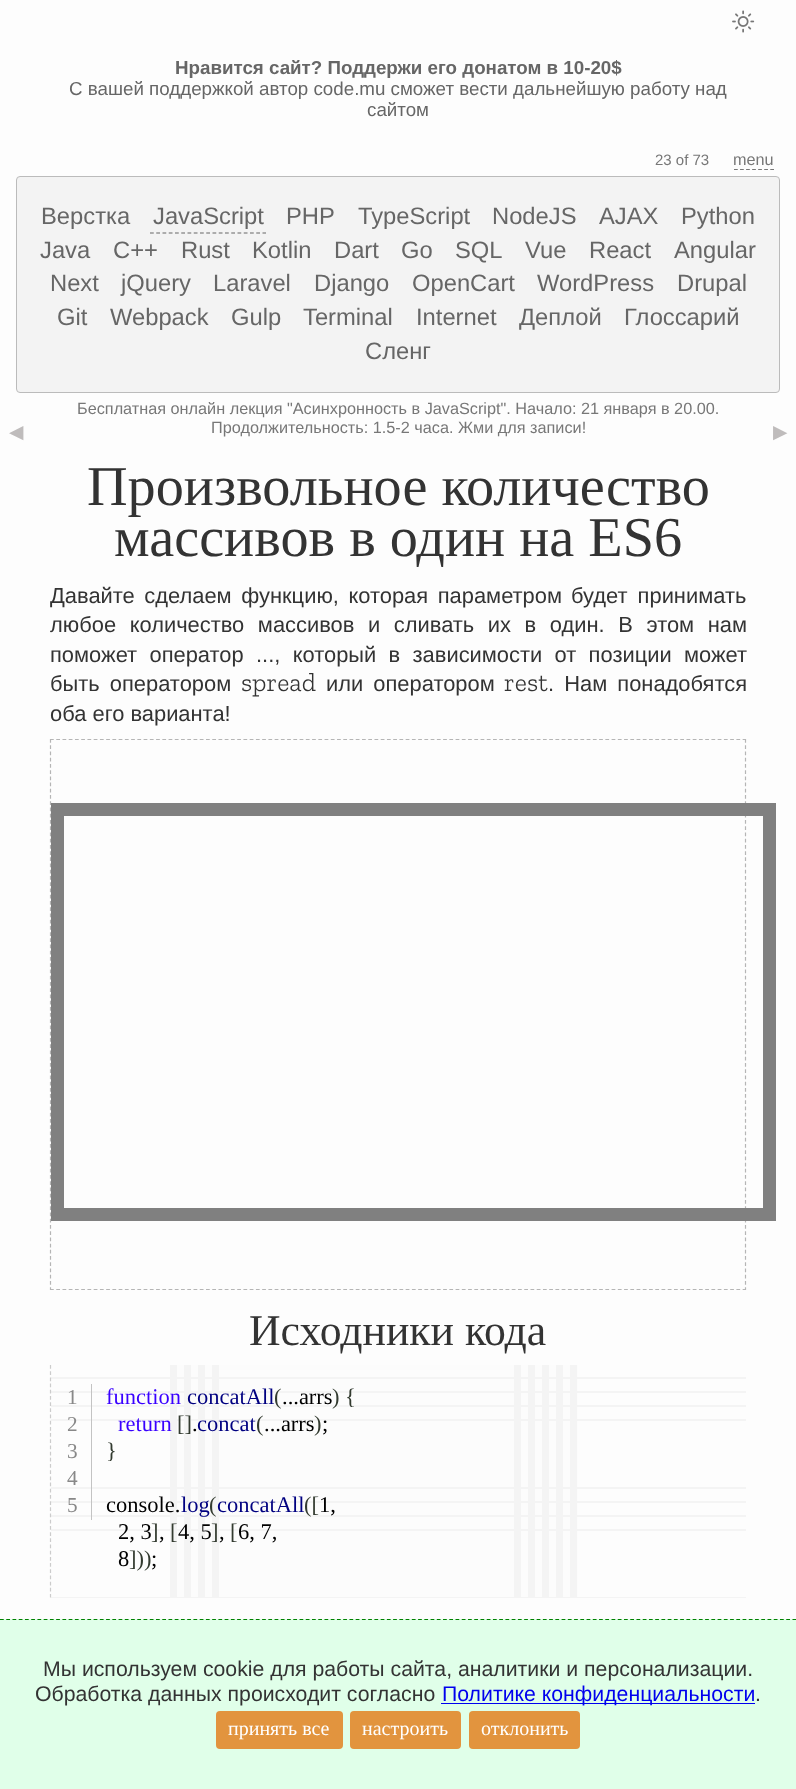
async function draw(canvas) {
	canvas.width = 796;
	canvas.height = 1789;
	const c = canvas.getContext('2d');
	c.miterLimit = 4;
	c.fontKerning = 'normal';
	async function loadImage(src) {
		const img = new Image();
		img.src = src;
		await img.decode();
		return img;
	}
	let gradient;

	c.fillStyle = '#fdfdfd';
	c.fillRect(0, 0, 796, 1789);
	c.drawImage(await loadImage('img1.png'), 732, 10, 23, 23);
	c.font = 'bold 18.75px Liberation Sans';
	c.fillStyle = '#666';
	c.fillText('Нравится сайт? Поддержи его донатом в 10-20$', 175, 74);
	c.font = '18.75px Liberation Sans';
	c.fillText('С вашей поддержкой автор code.mu сможет вести дальнейшую работу над', 69, 95);
	c.fillText('сайтом', 367, 116);
	c.font = '15px Liberation Sans';
	c.fillStyle = '#777';
	c.fillText('23 of 73', 655, 165);
	c.beginPath();
	c.moveTo(734, 169.5);
	c.lineTo(774, 169.5);
	c.strokeStyle = '#777';
	c.lineWidth = 1.2;
	c.setLineDash([3.75, 2.29]);
	c.stroke();
	c.font = '16.25px Liberation Sans';
	c.fillText('menu', 733, 165);
	c.fillStyle = '#f3f3f3';
	c.beginPath();
	c.roundRect(16.5, 176.5, 763, 216, 3.5);
	c.fill();
	c.strokeStyle = '#bbb';
	c.lineWidth = 1;
	c.setLineDash([]);
	c.stroke();
	c.font = '23.75px Liberation Sans';
	c.fillStyle = '#666';
	c.fillText('Верстка', 41, 224);
	c.beginPath();
	c.moveTo(150, 233);
	c.lineTo(266, 233);
	c.strokeStyle = '#666';
	c.lineWidth = 1.2;
	c.setLineDash([3.75, 2.5]);
	c.stroke();
	for (const [text, x, y] of [
		['JavaScript', 153, 224],
		['PHP', 286, 224],
		['TypeScript', 358, 224],
		['NodeJS', 492, 224],
		['AJAX', 599, 224],
		['Python', 681, 224],
		['Java', 40, 258],
		['C++', 113, 258],
		['Rust', 181, 258],
		['Kotlin', 252, 258],
		['Dart', 334, 258],
		['Go', 401, 258],
		['SQL', 455, 258],
		['Vue', 525, 258],
		['React', 589, 258],
		['Angular', 674, 258],
		['Next', 50, 291],
		['jQuery', 121, 291],
		['Laravel', 213, 291],
		['Django', 314, 291],
		['OpenCart', 412, 291],
		['WordPress', 537, 291],
		['Drupal', 677, 291],
		['Git', 57, 325],
		['Webpack', 110, 325],
		['Gulp', 231, 325],
		['Terminal', 303, 325],
		['Internet', 416, 325],
		['Деплой', 519, 325],
		['Глоссарий', 624, 325],
		['Сленг', 365, 359],
	]) {
		c.fillText(text, x, y);
	}
	c.font = '18.75px DejaVu Sans';
	c.fillStyle = '#bfbcbc';
	c.fillText('◀', 9, 438);
	c.fillText('▶', 773, 438);
	c.font = '16.25px Liberation Sans';
	c.fillStyle = '#777';
	c.fillText('Бесплатная онлайн лекция "Асинхронность в JavaScript". Начало: 21 января в 20.00.', 77, 414);
	c.fillText('Продолжительность: 1.5-2 часа. Жми для записи!', 211, 433);
	c.font = '56.25px Liberation Serif';
	c.fillStyle = '#333';
	c.fillText('Произвольное количество', 87, 505);
	c.fillText('массивов в один на ES6', 114, 556);
	c.wordSpacing = '3.5px';
	c.font = '21.9px Liberation Sans';
	c.fillText('Давайте сделаем функцию, которая параметром', 50, 603);
	c.wordSpacing = '4px';
	c.fillText('будет принимать', 571, 603);
	c.wordSpacing = '7.5px';
	c.fillText('любое количество массивов', 50, 632);
	c.fillText('и сливать их в один. В этом нам', 368, 632);
	c.wordSpacing = '6.25px';
	c.fillText('поможет оператор', 50, 662);
	c.fillText('..., который в зависимости от позиции может', 256, 662);
	c.wordSpacing = '4px';
	c.fillText('быть оператором', 50, 691);
	c.wordSpacing = '0px';
	c.font = '300 26px Zilla Slab';
	c.fillText('spread', 241, 691);
	c.wordSpacing = '4px';
	c.font = '21.9px Liberation Sans';
	c.fillText('или оператором', 326, 691);
	c.wordSpacing = '0px';
	c.font = '300 26px Zilla Slab';
	c.fillText('rest', 504, 691);
	c.wordSpacing = '4px';
	c.font = '21.9px Liberation Sans';
	c.fillText('. Нам понадобятся', 548, 691);
	c.wordSpacing = '0px';
	c.fillText('оба его варианта!', 50, 721);
	c.beginPath();
	c.moveTo(50, 739.5);
	c.lineTo(746, 739.5);
	c.strokeStyle = '#b5b5b5';
	c.setLineDash([3.75, 2.49]);
	c.stroke();
	c.beginPath();
	c.moveTo(745.5, 739);
	c.lineTo(745.5, 1290);
	c.setLineDash([3.75, 2.48]);
	c.stroke();
	c.beginPath();
	c.moveTo(50, 1289.5);
	c.lineTo(746, 1289.5);
	c.setLineDash([3.75, 2.49]);
	c.stroke();
	c.beginPath();
	c.moveTo(50.5, 739);
	c.lineTo(50.5, 1290);
	c.setLineDash([3.75, 2.48]);
	c.stroke();
	c.strokeStyle = '#808080';
	c.lineWidth = 13;
	c.setLineDash([]);
	c.strokeRect(57.5, 809.5, 712, 405);
	c.font = '43.75px Liberation Serif';
	c.fillText('Исходники кода', 249, 1345);
	gradient = c.createLinearGradient(51, 1481, 753, 1481);
	gradient.addColorStop(0, '#fcfcfc');
	gradient.addColorStop(0.02, '#fcfcfc');
	gradient.addColorStop(0.02, '#f4f4f4');
	gradient.addColorStop(0.02, '#fcfcfc');
	gradient.addColorStop(0.04, '#fcfcfc');
	gradient.addColorStop(0.04, '#f4f4f4');
	gradient.addColorStop(0.04, '#fcfcfc');
	gradient.addColorStop(0.06, '#fcfcfc');
	gradient.addColorStop(0.06, '#f4f4f4');
	gradient.addColorStop(0.06, '#fcfcfc');
	gradient.addColorStop(0.08, '#fcfcfc');
	gradient.addColorStop(0.08, '#f4f4f4');
	gradient.addColorStop(0.08, '#fcfcfc');
	gradient.addColorStop(0.1, '#fcfcfc');
	gradient.addColorStop(0.1, '#f4f4f4');
	gradient.addColorStop(0.1, '#fcfcfc');
	gradient.addColorStop(0.12, '#fcfcfc');
	gradient.addColorStop(0.12, '#f4f4f4');
	gradient.addColorStop(0.12, '#fcfcfc');
	gradient.addColorStop(0.14, '#fcfcfc');
	gradient.addColorStop(0.14, '#f4f4f4');
	gradient.addColorStop(0.14, '#fcfcfc');
	gradient.addColorStop(0.16, '#fcfcfc');
	gradient.addColorStop(0.16, '#f4f4f4');
	gradient.addColorStop(0.16, '#fcfcfc');
	gradient.addColorStop(0.17, '#fcfcfc');
	gradient.addColorStop(0.17, '#f4f4f4');
	gradient.addColorStop(0.18, '#f4f4f4');
	gradient.addColorStop(0.18, '#fcfcfc');
	gradient.addColorStop(0.19, '#fcfcfc');
	gradient.addColorStop(0.19, '#f4f4f4');
	gradient.addColorStop(0.2, '#f4f4f4');
	gradient.addColorStop(0.2, '#fcfcfc');
	gradient.addColorStop(0.21, '#fcfcfc');
	gradient.addColorStop(0.21, '#f4f4f4');
	gradient.addColorStop(0.22, '#f4f4f4');
	gradient.addColorStop(0.22, '#fcfcfc');
	gradient.addColorStop(0.23, '#fcfcfc');
	gradient.addColorStop(0.23, '#f4f4f4');
	gradient.addColorStop(0.24, '#f4f4f4');
	gradient.addColorStop(0.24, '#fcfcfc');
	gradient.addColorStop(0.25, '#fcfcfc');
	gradient.addColorStop(0.25, '#f4f4f4');
	gradient.addColorStop(0.25, '#fcfcfc');
	gradient.addColorStop(0.27, '#fcfcfc');
	gradient.addColorStop(0.27, '#f4f4f4');
	gradient.addColorStop(0.27, '#fcfcfc');
	gradient.addColorStop(0.29, '#fcfcfc');
	gradient.addColorStop(0.29, '#f4f4f4');
	gradient.addColorStop(0.29, '#fcfcfc');
	gradient.addColorStop(0.31, '#fcfcfc');
	gradient.addColorStop(0.31, '#f4f4f4');
	gradient.addColorStop(0.31, '#fcfcfc');
	gradient.addColorStop(0.33, '#fcfcfc');
	gradient.addColorStop(0.33, '#f4f4f4');
	gradient.addColorStop(0.33, '#fcfcfc');
	gradient.addColorStop(0.35, '#fcfcfc');
	gradient.addColorStop(0.35, '#f4f4f4');
	gradient.addColorStop(0.35, '#fcfcfc');
	gradient.addColorStop(0.37, '#fcfcfc');
	gradient.addColorStop(0.37, '#f4f4f4');
	gradient.addColorStop(0.37, '#fcfcfc');
	gradient.addColorStop(0.39, '#fcfcfc');
	gradient.addColorStop(0.39, '#f4f4f4');
	gradient.addColorStop(0.39, '#fcfcfc');
	gradient.addColorStop(0.41, '#fcfcfc');
	gradient.addColorStop(0.41, '#f4f4f4');
	gradient.addColorStop(0.41, '#fcfcfc');
	gradient.addColorStop(0.43, '#fcfcfc');
	gradient.addColorStop(0.43, '#f4f4f4');
	gradient.addColorStop(0.43, '#fcfcfc');
	gradient.addColorStop(0.45, '#fcfcfc');
	gradient.addColorStop(0.45, '#f4f4f4');
	gradient.addColorStop(0.45, '#fcfcfc');
	gradient.addColorStop(0.47, '#fcfcfc');
	gradient.addColorStop(0.47, '#f4f4f4');
	gradient.addColorStop(0.47, '#fcfcfc');
	gradient.addColorStop(0.49, '#fcfcfc');
	gradient.addColorStop(0.49, '#f4f4f4');
	gradient.addColorStop(0.49, '#fcfcfc');
	gradient.addColorStop(0.51, '#fcfcfc');
	gradient.addColorStop(0.51, '#f4f4f4');
	gradient.addColorStop(0.51, '#fcfcfc');
	gradient.addColorStop(0.53, '#fcfcfc');
	gradient.addColorStop(0.53, '#f4f4f4');
	gradient.addColorStop(0.53, '#fcfcfc');
	gradient.addColorStop(0.55, '#fcfcfc');
	gradient.addColorStop(0.55, '#f4f4f4');
	gradient.addColorStop(0.55, '#fcfcfc');
	gradient.addColorStop(0.57, '#fcfcfc');
	gradient.addColorStop(0.57, '#f4f4f4');
	gradient.addColorStop(0.57, '#fcfcfc');
	gradient.addColorStop(0.59, '#fcfcfc');
	gradient.addColorStop(0.59, '#f4f4f4');
	gradient.addColorStop(0.59, '#fcfcfc');
	gradient.addColorStop(0.61, '#fcfcfc');
	gradient.addColorStop(0.61, '#f4f4f4');
	gradient.addColorStop(0.61, '#fcfcfc');
	gradient.addColorStop(0.63, '#fcfcfc');
	gradient.addColorStop(0.63, '#f4f4f4');
	gradient.addColorStop(0.63, '#fcfcfc');
	gradient.addColorStop(0.65, '#fcfcfc');
	gradient.addColorStop(0.65, '#f4f4f4');
	gradient.addColorStop(0.65, '#fcfcfc');
	gradient.addColorStop(0.66, '#fcfcfc');
	gradient.addColorStop(0.66, '#f4f4f4');
	gradient.addColorStop(0.67, '#f4f4f4');
	gradient.addColorStop(0.67, '#fcfcfc');
	gradient.addColorStop(0.68, '#fcfcfc');
	gradient.addColorStop(0.68, '#f4f4f4');
	gradient.addColorStop(0.69, '#f4f4f4');
	gradient.addColorStop(0.69, '#fcfcfc');
	gradient.addColorStop(0.7, '#fcfcfc');
	gradient.addColorStop(0.7, '#f4f4f4');
	gradient.addColorStop(0.71, '#f4f4f4');
	gradient.addColorStop(0.71, '#fcfcfc');
	gradient.addColorStop(0.72, '#fcfcfc');
	gradient.addColorStop(0.72, '#f4f4f4');
	gradient.addColorStop(0.73, '#f4f4f4');
	gradient.addColorStop(0.73, '#fcfcfc');
	gradient.addColorStop(0.74, '#fcfcfc');
	gradient.addColorStop(0.74, '#f4f4f4');
	gradient.addColorStop(0.75, '#f4f4f4');
	gradient.addColorStop(0.75, '#fcfcfc');
	gradient.addColorStop(0.76, '#fcfcfc');
	gradient.addColorStop(0.76, '#f4f4f4');
	gradient.addColorStop(0.76, '#fcfcfc');
	gradient.addColorStop(0.78, '#fcfcfc');
	gradient.addColorStop(0.78, '#f4f4f4');
	gradient.addColorStop(0.78, '#fcfcfc');
	gradient.addColorStop(0.8, '#fcfcfc');
	gradient.addColorStop(0.8, '#f4f4f4');
	gradient.addColorStop(0.8, '#fcfcfc');
	gradient.addColorStop(0.82, '#fcfcfc');
	gradient.addColorStop(0.82, '#f4f4f4');
	gradient.addColorStop(0.82, '#fcfcfc');
	gradient.addColorStop(0.84, '#fcfcfc');
	gradient.addColorStop(0.84, '#f4f4f4');
	gradient.addColorStop(0.84, '#fcfcfc');
	gradient.addColorStop(0.86, '#fcfcfc');
	gradient.addColorStop(0.86, '#f4f4f4');
	gradient.addColorStop(0.86, '#fcfcfc');
	gradient.addColorStop(0.88, '#fcfcfc');
	gradient.addColorStop(0.88, '#f4f4f4');
	gradient.addColorStop(0.88, '#fcfcfc');
	gradient.addColorStop(0.9, '#fcfcfc');
	gradient.addColorStop(0.9, '#f4f4f4');
	gradient.addColorStop(0.9, '#fcfcfc');
	gradient.addColorStop(0.92, '#fcfcfc');
	gradient.addColorStop(0.92, '#f4f4f4');
	gradient.addColorStop(0.92, '#fcfcfc');
	gradient.addColorStop(0.94, '#fcfcfc');
	gradient.addColorStop(0.94, '#f4f4f4');
	gradient.addColorStop(0.94, '#fcfcfc');
	gradient.addColorStop(0.96, '#fcfcfc');
	gradient.addColorStop(0.96, '#f4f4f4');
	gradient.addColorStop(0.96, '#fcfcfc');
	gradient.addColorStop(0.98, '#fcfcfc');
	gradient.addColorStop(0.98, '#f4f4f4');
	gradient.addColorStop(0.98, '#fcfcfc');
	gradient.addColorStop(1, '#fcfcfc');
	gradient.addColorStop(1, '#f4f4f4');
	c.fillStyle = gradient;
	c.fillRect(170, 1365, 408, 232);
	gradient = c.createLinearGradient(399, 1365, 399, 1599);
	gradient.addColorStop(0, '#00000000');
	gradient.addColorStop(0.05, '#f4f4f400');
	gradient.addColorStop(0.05, '#f4f4f4');
	gradient.addColorStop(0.06, '#f4f4f4');
	gradient.addColorStop(0.06, '#f4f4f400');
	gradient.addColorStop(0.11, '#f4f4f400');
	gradient.addColorStop(0.11, '#f4f4f4');
	gradient.addColorStop(0.12, '#f4f4f4');
	gradient.addColorStop(0.12, '#f4f4f400');
	gradient.addColorStop(0.17, '#f4f4f400');
	gradient.addColorStop(0.17, '#f4f4f4');
	gradient.addColorStop(0.18, '#f4f4f4');
	gradient.addColorStop(0.18, '#f4f4f400');
	gradient.addColorStop(0.23, '#f4f4f400');
	gradient.addColorStop(0.23, '#f4f4f4');
	gradient.addColorStop(0.24, '#f4f4f4');
	gradient.addColorStop(0.24, '#f4f4f400');
	gradient.addColorStop(0.29, '#f4f4f400');
	gradient.addColorStop(0.29, '#f4f4f4');
	gradient.addColorStop(0.29, '#f4f4f4');
	gradient.addColorStop(0.29, '#f4f4f400');
	gradient.addColorStop(0.35, '#f4f4f400');
	gradient.addColorStop(0.35, '#f4f4f4');
	gradient.addColorStop(0.35, '#f4f4f4');
	gradient.addColorStop(0.35, '#f4f4f400');
	gradient.addColorStop(0.41, '#f4f4f400');
	gradient.addColorStop(0.41, '#f4f4f4');
	gradient.addColorStop(0.41, '#f4f4f4');
	gradient.addColorStop(0.41, '#f4f4f400');
	gradient.addColorStop(0.47, '#f4f4f400');
	gradient.addColorStop(0.47, '#f4f4f4');
	gradient.addColorStop(0.47, '#f4f4f4');
	gradient.addColorStop(0.47, '#f4f4f400');
	gradient.addColorStop(0.52, '#f4f4f400');
	gradient.addColorStop(0.52, '#f4f4f4');
	gradient.addColorStop(0.53, '#f4f4f4');
	gradient.addColorStop(0.53, '#f4f4f400');
	gradient.addColorStop(0.58, '#f4f4f400');
	gradient.addColorStop(0.58, '#f4f4f4');
	gradient.addColorStop(0.59, '#f4f4f4');
	gradient.addColorStop(0.59, '#f4f4f400');
	gradient.addColorStop(0.64, '#f4f4f400');
	gradient.addColorStop(0.64, '#f4f4f4');
	gradient.addColorStop(0.65, '#f4f4f4');
	gradient.addColorStop(0.65, '#f4f4f400');
	gradient.addColorStop(0.7, '#f4f4f400');
	gradient.addColorStop(0.7, '#f4f4f4');
	gradient.addColorStop(0.71, '#f4f4f4');
	gradient.addColorStop(0.71, '#f4f4f400');
	gradient.addColorStop(0.76, '#f4f4f400');
	gradient.addColorStop(0.76, '#f4f4f4');
	gradient.addColorStop(0.76, '#f4f4f4');
	gradient.addColorStop(0.76, '#f4f4f400');
	gradient.addColorStop(0.82, '#f4f4f400');
	gradient.addColorStop(0.82, '#f4f4f4');
	gradient.addColorStop(0.82, '#f4f4f4');
	gradient.addColorStop(0.82, '#f4f4f400');
	gradient.addColorStop(0.88, '#f4f4f400');
	gradient.addColorStop(0.88, '#f4f4f4');
	gradient.addColorStop(0.88, '#f4f4f4');
	gradient.addColorStop(0.88, '#f4f4f400');
	gradient.addColorStop(0.94, '#f4f4f400');
	gradient.addColorStop(0.94, '#f4f4f4');
	gradient.addColorStop(0.94, '#f4f4f4');
	gradient.addColorStop(0.94, '#f4f4f400');
	gradient.addColorStop(0.99, '#f4f4f400');
	gradient.addColorStop(0.99, '#f4f4f4');
	gradient.addColorStop(1, '#f4f4f4');
	c.fillStyle = gradient;
	c.fillRect(51, 1377, 695, 221);
	c.beginPath();
	c.moveTo(50.5, 1365);
	c.lineTo(50.5, 1597.5);
	c.strokeStyle = '#ccc';
	c.lineWidth = 1.2;
	c.setLineDash([3.75, 2.44]);
	c.stroke();
	c.fillStyle = '#c3c3c3';
	c.fillRect(91, 1384, 1, 136);
	c.font = '21.25px Liberation Serif';
	c.fillStyle = '#888';
	c.fillText('1', 67, 1404);
	c.font = '22.5px Liberation Serif';
	c.fillStyle = '#3900ff';
	c.fillText('function', 106, 1404);
	c.fillStyle = '#000080';
	c.fillText('concatAll', 187, 1404);
	c.fillStyle = '#333b30';
	c.fillText('(', 274, 1404);
	c.fillStyle = '#000';
	c.fillText('...arrs', 282, 1404);
	c.fillStyle = '#333b30';
	c.fillText(') {', 332, 1404);
	c.font = '21.25px Liberation Serif';
	c.fillStyle = '#888';
	c.fillText('2', 67, 1431);
	c.font = '22.5px Liberation Serif';
	c.fillStyle = '#3900ff';
	c.fillText('return', 118, 1431);
	c.fillStyle = '#333b30';
	c.fillText('[]', 177, 1431);
	c.fillStyle = '#000';
	c.fillText('.', 192, 1431);
	c.fillStyle = '#000080';
	c.fillText('concat', 197, 1431);
	c.fillStyle = '#333b30';
	c.fillText('(', 256, 1431);
	c.fillStyle = '#000';
	c.fillText('...arrs', 264, 1431);
	c.fillStyle = '#333b30';
	c.fillText(')', 314, 1431);
	c.fillStyle = '#000';
	c.fillText(';', 322, 1431);
	c.font = '21.25px Liberation Serif';
	c.fillStyle = '#888';
	c.fillText('3', 67, 1458);
	c.font = '22.5px Liberation Serif';
	c.fillStyle = '#333b30';
	c.fillText('}', 106, 1458);
	c.font = '21.25px Liberation Serif';
	c.fillStyle = '#888';
	c.fillText('4', 67, 1485);
	c.fillText('5', 67, 1512);
	c.font = '22.5px Liberation Serif';
	c.fillStyle = '#000';
	c.fillText('console.', 106, 1512);
	c.fillStyle = '#000080';
	c.fillText('log', 181, 1512);
	c.fillStyle = '#333b30';
	c.fillText('(', 209, 1512);
	c.fillStyle = '#000080';
	c.fillText('concatAll', 217, 1512);
	c.fillStyle = '#333b30';
	c.fillText('([', 304, 1512);
	c.fillStyle = '#000';
	c.fillText('1,', 319, 1512);
	c.fillText('2, 3', 118, 1539);
	c.fillStyle = '#333b30';
	c.fillText(']', 151, 1539);
	c.fillStyle = '#000';
	c.fillText(',', 159, 1539);
	c.fillStyle = '#333b30';
	c.fillText('[', 170, 1539);
	c.fillStyle = '#000';
	c.fillText('4, 5', 178, 1539);
	c.fillStyle = '#333b30';
	c.fillText(']', 211, 1539);
	c.fillStyle = '#000';
	c.fillText(',', 219, 1539);
	c.fillStyle = '#333b30';
	c.fillText('[', 230, 1539);
	c.fillStyle = '#000';
	c.fillText('6, 7,', 238, 1539);
	c.fillText('8', 118, 1566);
	c.fillStyle = '#333b30';
	c.fillText(']))', 129, 1566);
	c.fillStyle = '#000';
	c.fillText(';', 151, 1566);
	c.fillStyle = '#e0ffe9';
	c.fillRect(0, 1619, 796, 170);
	c.beginPath();
	c.moveTo(0, 1619.5);
	c.lineTo(796, 1619.5);
	c.strokeStyle = '#008000';
	c.setLineDash([3.75, 2.49]);
	c.stroke();
	c.font = '21.25px Liberation Sans';
	c.fillStyle = '#333';
	c.fillText('Мы используем cookie для работы сайта, аналитики и персонализации.', 43, 1676);
	c.fillText('Обработка данных происходит согласно', 35, 1701);
	c.fillStyle = '#00e';
	c.fillRect(441, 1703, 314, 1);
	c.fillText('Политике конфиденциальности', 442, 1701);
	c.fillStyle = '#333';
	c.fillText('.', 755, 1701);
	c.fillStyle = '#e2943e';
	c.beginPath();
	c.roundRect(216, 1711, 127, 38, 4);
	c.fill();
	c.font = '20px Liberation Serif';
	c.fillStyle = '#fff';
	c.fillText('принять все', 228, 1735);
	c.fillStyle = '#e2943e';
	c.beginPath();
	c.roundRect(350, 1711, 111, 38, 4);
	c.fill();
	c.fillStyle = '#fff';
	c.fillText('настроить', 362, 1735);
	c.fillStyle = '#e2943e';
	c.beginPath();
	c.roundRect(469, 1711, 111, 38, 4);
	c.fill();
	c.fillStyle = '#fff';
	c.fillText('отклонить', 481, 1735);
}

draw(document.querySelector('canvas'));
